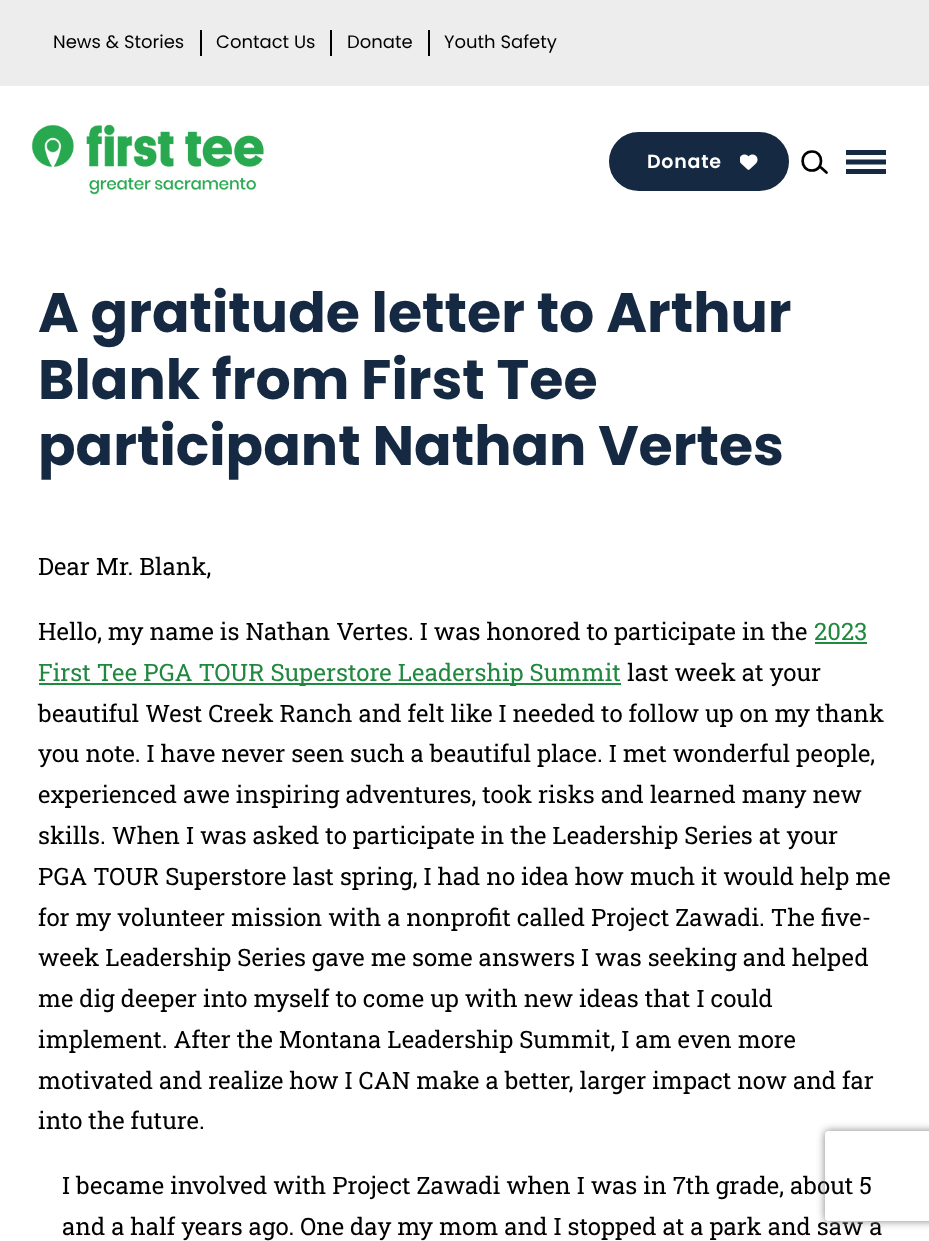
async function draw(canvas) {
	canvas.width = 929;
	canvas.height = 1241;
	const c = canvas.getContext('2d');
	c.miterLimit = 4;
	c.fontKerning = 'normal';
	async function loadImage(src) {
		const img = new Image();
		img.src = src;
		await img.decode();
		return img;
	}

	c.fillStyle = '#fff';
	c.fillRect(0, 0, 929, 1241);
	c.fillStyle = '#ededed';
	c.fillRect(0, 0, 929, 86);
	c.font = '18px Poppins';
	c.fillStyle = '#000';
	c.fillText('News & Stories', 53, 48);
	c.fillRect(200, 30, 2, 26);
	c.fillText('Contact Us', 216, 48);
	c.fillRect(330, 30, 2, 26);
	c.fillText('Donate', 347, 48);
	c.fillRect(428, 30, 2, 26);
	c.fillText('Youth Safety', 444, 48);
	c.drawImage(await loadImage('img1.png'), 31, 124, 233, 71);
	c.fillStyle = '#152a42';
	c.beginPath();
	c.roundRect(613, 136, 172, 51, 25.5);
	c.fill();
	c.strokeStyle = '#152a42';
	c.lineWidth = 8;
	c.stroke();
	c.letterSpacing = '0.75px';
	c.font = '600 19px Poppins';
	c.fillStyle = '#fff';
	c.fillText('Donate', 647, 168);
	c.drawImage(await loadImage('img2.png'), 740, 154, 18, 16);
	c.beginPath();
	c.moveTo(812, 170.5);
	c.bezierCurveTo(824, 170.5, 824, 151.5, 812, 151.5);
	c.bezierCurveTo(799.5, 151.5, 799.5, 170.5, 812, 170.5);
	c.moveTo(826.5, 172.5);
	c.lineTo(821, 167.5);
	c.strokeStyle = '#000';
	c.lineWidth = 2.7;
	c.lineCap = 'round';
	c.lineJoin = 'round';
	c.stroke();
	c.fillStyle = '#152a42';
	c.beginPath();
	c.moveTo(846, 150);
	c.lineTo(886, 150);
	c.lineTo(886, 155);
	c.lineTo(846, 155);
	c.closePath();
	c.moveTo(846, 164.5);
	c.lineTo(886, 164.5);
	c.lineTo(886, 159.5);
	c.lineTo(846, 159.5);
	c.closePath();
	c.moveTo(846, 174);
	c.lineTo(886, 174);
	c.lineTo(886, 169);
	c.lineTo(846, 169);
	c.closePath();
	c.fill();
	c.letterSpacing = '0px';
	c.font = 'bold 55.4px Poppins';
	for (const [text, x, y] of [
		['A gratitude letter to Arthur', 38, 332],
		['Blank from First Tee', 38, 399],
		['participant Nathan Vertes', 38, 465],
	]) {
		c.fillText(text, x, y);
	}
	c.font = '24px Roboto Slab';
	c.fillStyle = '#000';
	c.fillText('Dear Mr. Blank,', 38, 575);
	c.fillText('Hello, my name is Nathan Vertes. I was honored to participate in the', 38, 640);
	c.fillStyle = '#20883f';
	c.fillText('2023', 814, 640);
	c.fillRect(815, 642, 52, 2);
	c.fillRect(39, 683, 582, 2);
	c.fillText('First Tee PGA TOUR Superstore Leadership Summit', 38, 681);
	c.fillStyle = '#000';
	for (const [text, x, y] of [
		['last week at your', 627, 681],
		['beautiful West Creek Ranch and felt like I needed to follow up on my thank', 38, 722],
		['you note. I have never seen such a beautiful place. I met wonderful people,', 38, 762],
		['experienced awe inspiring adventures, took risks and learned many new', 38, 803],
		['skills. When I was asked to participate in the Leadership Series at your', 38, 844],
		['PGA TOUR Superstore last spring, I had no idea how much it would help me', 38, 885],
		['for my volunteer mission with a nonprofit called Project Zawadi. The five-', 38, 926],
		['week Leadership Series gave me some answers I was seeking and helped', 38, 966],
		['me dig deeper into myself to come up with new ideas that I could', 38, 1007],
		['implement. After the Montana Leadership Summit, I am even more', 38, 1048],
		['motivated and realize how I CAN make a better, larger impact now and far', 38, 1089],
		['into the future.', 38, 1129],
		['I became involved with Project Zawadi when I was in 7th grade, about 5', 62, 1194],
		['and a half years ago. One day my mom and I stopped at a park and saw a', 62, 1235],
	]) {
		c.fillText(text, x, y);
	}
	c.save();
	c.beginPath();
	c.moveTo(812, 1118);
	c.lineTo(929, 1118);
	c.lineTo(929, 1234);
	c.lineTo(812, 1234);
	c.closePath();
	c.moveTo(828, 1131);
	c.lineTo(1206, 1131);
	c.bezierCurveTo(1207.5, 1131, 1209, 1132.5, 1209, 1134);
	c.lineTo(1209, 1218);
	c.bezierCurveTo(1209, 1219.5, 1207.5, 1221, 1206, 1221);
	c.lineTo(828, 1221);
	c.bezierCurveTo(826.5, 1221, 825, 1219.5, 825, 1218);
	c.lineTo(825, 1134);
	c.bezierCurveTo(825, 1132.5, 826.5, 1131, 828, 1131);
	c.closePath();
	c.clip('evenodd');
	c.fillStyle = '#808080';
	c.filter = 'blur(4px)';
	c.beginPath();
	c.roundRect(825, 1131, 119, 90, 3);
	c.fill();
	c.filter = 'none';
	c.restore();
}

draw(document.querySelector('canvas'));
